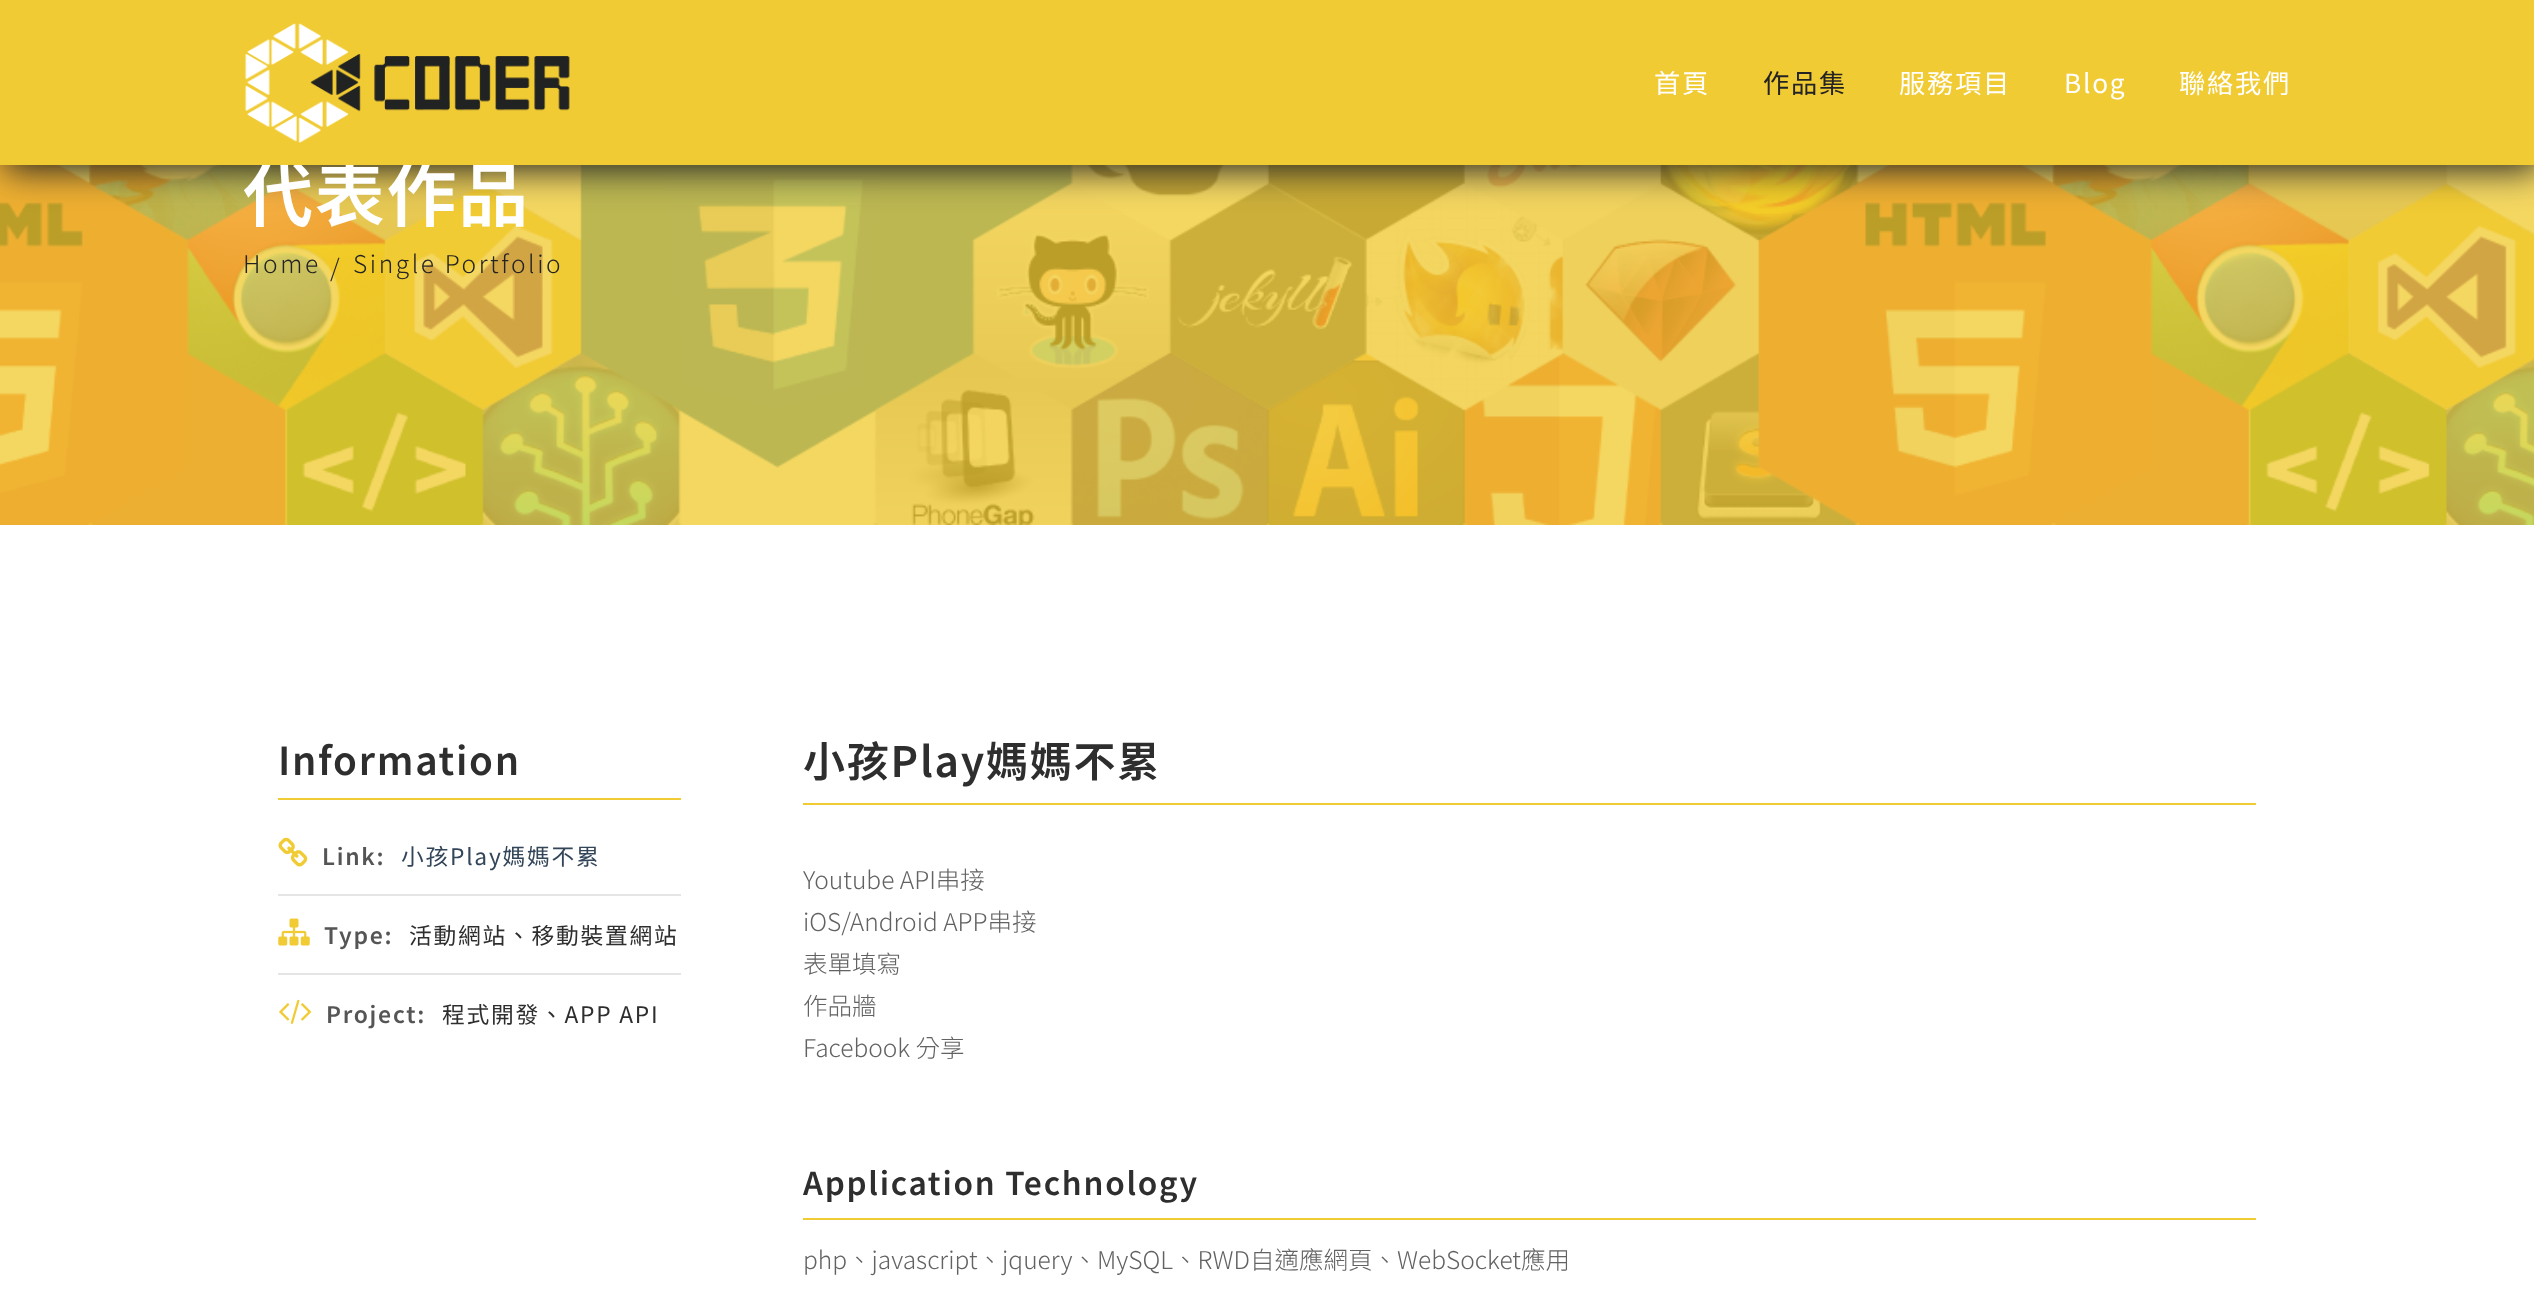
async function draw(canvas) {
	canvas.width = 2534;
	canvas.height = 1292;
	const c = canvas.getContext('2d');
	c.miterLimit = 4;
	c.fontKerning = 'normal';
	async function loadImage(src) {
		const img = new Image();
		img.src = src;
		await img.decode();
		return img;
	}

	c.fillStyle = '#fff';
	c.fillRect(0, 0, 2534, 1292);
	c.drawImage(await loadImage('img2.png'), 0, 165, 2534, 360);
	c.fillStyle = '#232323';
	c.filter = 'blur(17.5px)';
	c.beginPath();
	c.rect(5, 5, 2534, 165);
	c.fill();
	c.filter = 'none';
	c.letterSpacing = '1.75px';
	c.font = '600 70px Noto Sans TC';
	c.fillStyle = '#fff';
	c.fillText('代表作品', 243, 221);
	c.fillStyle = '#f1cb34';
	c.fillRect(0, 0, 2534, 165);
	c.drawImage(await loadImage('img1.png'), 245, 23, 325, 120);
	c.font = '26.25px Noto Sans TC';
	c.fillStyle = '#fff';
	c.fillText('首頁', 1654, 93);
	c.fillStyle = '#232323';
	c.fillText('作品集', 1763, 93);
	c.fillStyle = '#fff';
	for (const [text, x, y] of [
		['服務項目', 1899, 93],
		['Blog', 2064, 93],
		['聯絡我們', 2179, 93],
	]) {
		c.fillText(text, x, y);
	}
	c.letterSpacing = '2.6px';
	c.font = '300 24.5px Noto Sans TC';
	c.fillStyle = '#232323';
	for (const [text, x, y] of [
		['Home', 243, 273],
		['/', 330, 277],
		['Single Portfolio', 353, 273],
	]) {
		c.fillText(text, x, y);
	}
	c.fillStyle = '#f1cb34';
	c.fillRect(278, 798, 403, 2);
	c.letterSpacing = '1.75px';
	c.font = '600 38.5px Noto Sans TC';
	c.fillStyle = '#2e2e2e';
	c.fillText('Information', 278, 775);
	c.fillStyle = '#e5e5e5';
	c.fillRect(278, 894, 403, 2);
	c.drawImage(await loadImage('img3.png'), 278, 837, 30, 30);
	c.font = '600 22.75px Noto Sans TC';
	c.fillStyle = '#555';
	c.fillText('Link:', 322, 865);
	c.font = '22.75px Noto Sans TC';
	c.fillStyle = '#334559';
	c.fillText('小孩Play媽媽不累', 401, 865);
	c.fillStyle = '#e5e5e5';
	c.fillRect(278, 973, 403, 2);
	c.drawImage(await loadImage('img4.png'), 278, 918, 32, 28);
	c.font = '600 22.75px Noto Sans TC';
	c.fillStyle = '#555';
	c.fillText('Type:', 324, 944);
	c.font = '22.75px Noto Sans TC';
	c.fillStyle = '#2e2e2e';
	c.fillText('活動網站、移動裝置網站', 409, 944);
	c.drawImage(await loadImage('img5.png'), 279, 999, 33, 25);
	c.font = '600 22.75px Noto Sans TC';
	c.fillStyle = '#555';
	c.fillText('Project:', 326, 1023);
	c.font = '22.75px Noto Sans TC';
	c.fillStyle = '#2e2e2e';
	c.fillText('程式開發、APP API', 442, 1023);
	c.fillStyle = '#f1cb34';
	c.fillRect(803, 803, 1453, 2);
	c.font = '600 42px Noto Sans TC';
	c.fillStyle = '#2e2e2e';
	c.fillText('小孩Play媽媽不累', 803, 777);
	c.letterSpacing = '0px';
	c.font = '300 24.5px Noto Sans TC';
	c.fillStyle = '#626262';
	for (const [text, x, y] of [
		['Youtube API串接', 803, 889],
		['iOS/Android APP串接', 803, 931],
		['表單填寫', 803, 973],
		['作品牆', 803, 1015],
		['Facebook 分享', 803, 1057],
	]) {
		c.fillText(text, x, y);
	}
	c.fillStyle = '#f1cb34';
	c.fillRect(803, 1218, 1453, 2);
	c.letterSpacing = '1.75px';
	c.font = '600 31.5px Noto Sans TC';
	c.fillStyle = '#2e2e2e';
	c.fillText('Application Technology', 803, 1195);
	c.letterSpacing = '0px';
	c.font = '300 24.5px Noto Sans TC';
	c.fillStyle = '#626262';
	c.fillText('php、javascript、jquery、MySQL、RWD自適應網頁、WebSocket應用', 803, 1269);
}

draw(document.querySelector('canvas'));
